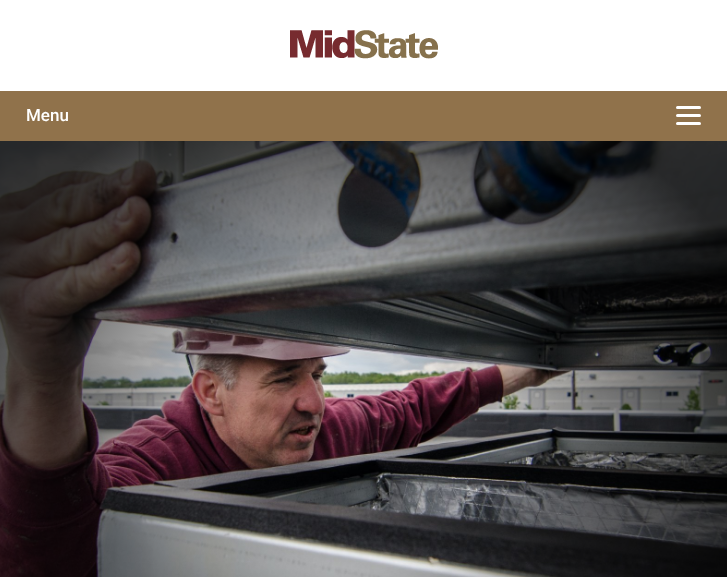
async function draw(canvas) {
	canvas.width = 727;
	canvas.height = 577;
	const c = canvas.getContext('2d');
	c.miterLimit = 4;
	c.fontKerning = 'normal';
	async function loadImage(src) {
		const img = new Image();
		img.src = src;
		await img.decode();
		return img;
	}

	c.fillStyle = '#fff';
	c.fillRect(0, 0, 727, 577);
	c.drawImage(await loadImage('img1.png'), 290, 30, 148, 29);
	c.fillStyle = '#90724b';
	c.fillRect(0, 91, 727, 50);
	c.font = '500 17px Roboto';
	c.fillStyle = '#fff';
	c.fillText('Menu', 26, 121);
	c.beginPath();
	c.roundRect(676, 106, 25, 3, 1.5);
	c.fill();
	c.beginPath();
	c.roundRect(676, 114, 25, 3, 1.5);
	c.fill();
	c.beginPath();
	c.roundRect(676, 122, 25, 3, 1.5);
	c.fill();
	c.drawImage(await loadImage('img2.png'), 0, 141, 727, 436);
}

draw(document.querySelector('canvas'));
